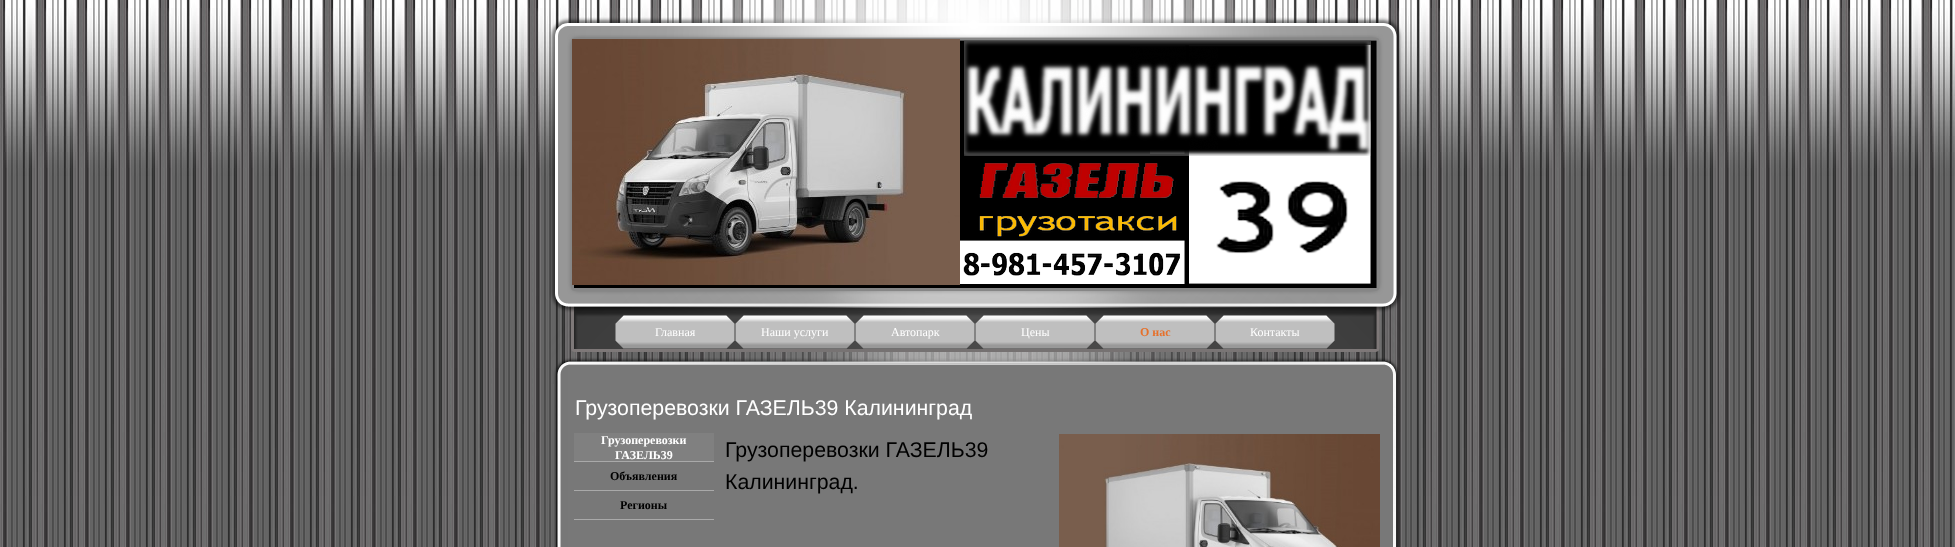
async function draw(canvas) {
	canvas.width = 1955;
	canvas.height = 547;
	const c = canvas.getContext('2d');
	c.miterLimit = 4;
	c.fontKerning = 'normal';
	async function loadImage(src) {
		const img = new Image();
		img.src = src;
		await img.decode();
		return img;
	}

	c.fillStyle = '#fff';
	c.fillRect(0, 0, 1955, 547);
	c.drawImage(await loadImage('img1.png'), 0, 0, 1955, 547);
	c.drawImage(await loadImage('img2.png'), 549, 0, 854, 384);
	c.drawImage(await loadImage('img3.png'), 572, 39, 388, 246);
	c.drawImage(await loadImage('img4.png'), 964, 41, 407, 115);
	c.drawImage(await loadImage('img5.png'), 979, 163, 197, 35);
	c.drawImage(await loadImage('img6.png'), 1216, 181, 132, 73);
	c.drawImage(await loadImage('img7.png'), 979, 216, 198, 21);
	c.drawImage(await loadImage('img8.png'), 963, 252, 217, 24);
	c.drawImage(await loadImage('img9.png'), 615, 315, 120, 34);
	c.font = '12px Liberation Serif';
	c.fillText('Главная', 655, 336);
	c.drawImage(await loadImage('img10.png'), 735, 315, 120, 34);
	c.fillText('Наши услуги', 761, 336);
	c.drawImage(await loadImage('img11.png'), 855, 315, 120, 34);
	c.fillText('Автопарк', 891, 336);
	c.drawImage(await loadImage('img12.png'), 975, 315, 120, 34);
	c.fillText('Цены', 1021, 336);
	c.drawImage(await loadImage('img13.png'), 1095, 315, 120, 34);
	c.font = 'bold 12px Liberation Serif';
	c.fillStyle = '#e6702a';
	c.fillText('О нас', 1140, 336);
	c.drawImage(await loadImage('img14.png'), 1215, 315, 120, 34);
	c.font = '12px Liberation Serif';
	c.fillStyle = '#fff';
	c.fillText('Контакты', 1250, 336);
	c.drawImage(await loadImage('img15.png'), 554, 384, 845, 163);
	c.font = '21.3px Liberation Sans';
	c.fillText('Грузоперевозки ГАЗЕЛЬ39 Калининград', 575, 415);
	c.fillStyle = '#808080';
	c.fillRect(574, 433, 140, 28);
	c.fillStyle = '#a9a9a9';
	c.fillRect(574, 461, 140, 1);
	c.font = 'bold 12px Liberation Serif';
	c.fillStyle = '#fff';
	c.fillText('Грузоперевозки', 601, 444);
	c.fillText('ГАЗЕЛЬ39', 615, 459);
	c.fillStyle = '#a9a9a9';
	c.fillRect(574, 490, 140, 1);
	c.fillStyle = '#000';
	c.fillText('Объявления', 610, 480);
	c.fillStyle = '#a9a9a9';
	c.fillRect(574, 519, 140, 1);
	c.fillStyle = '#000';
	c.fillText('Регионы', 620, 509);
	c.font = '21.3px Liberation Sans';
	c.fillText('Грузоперевозки ГАЗЕЛЬ39', 725, 457);
	c.fillText('Калининград.', 725, 489);
	c.drawImage(await loadImage('img16.png'), 1059, 434, 321, 113);
}

draw(document.querySelector('canvas'));
